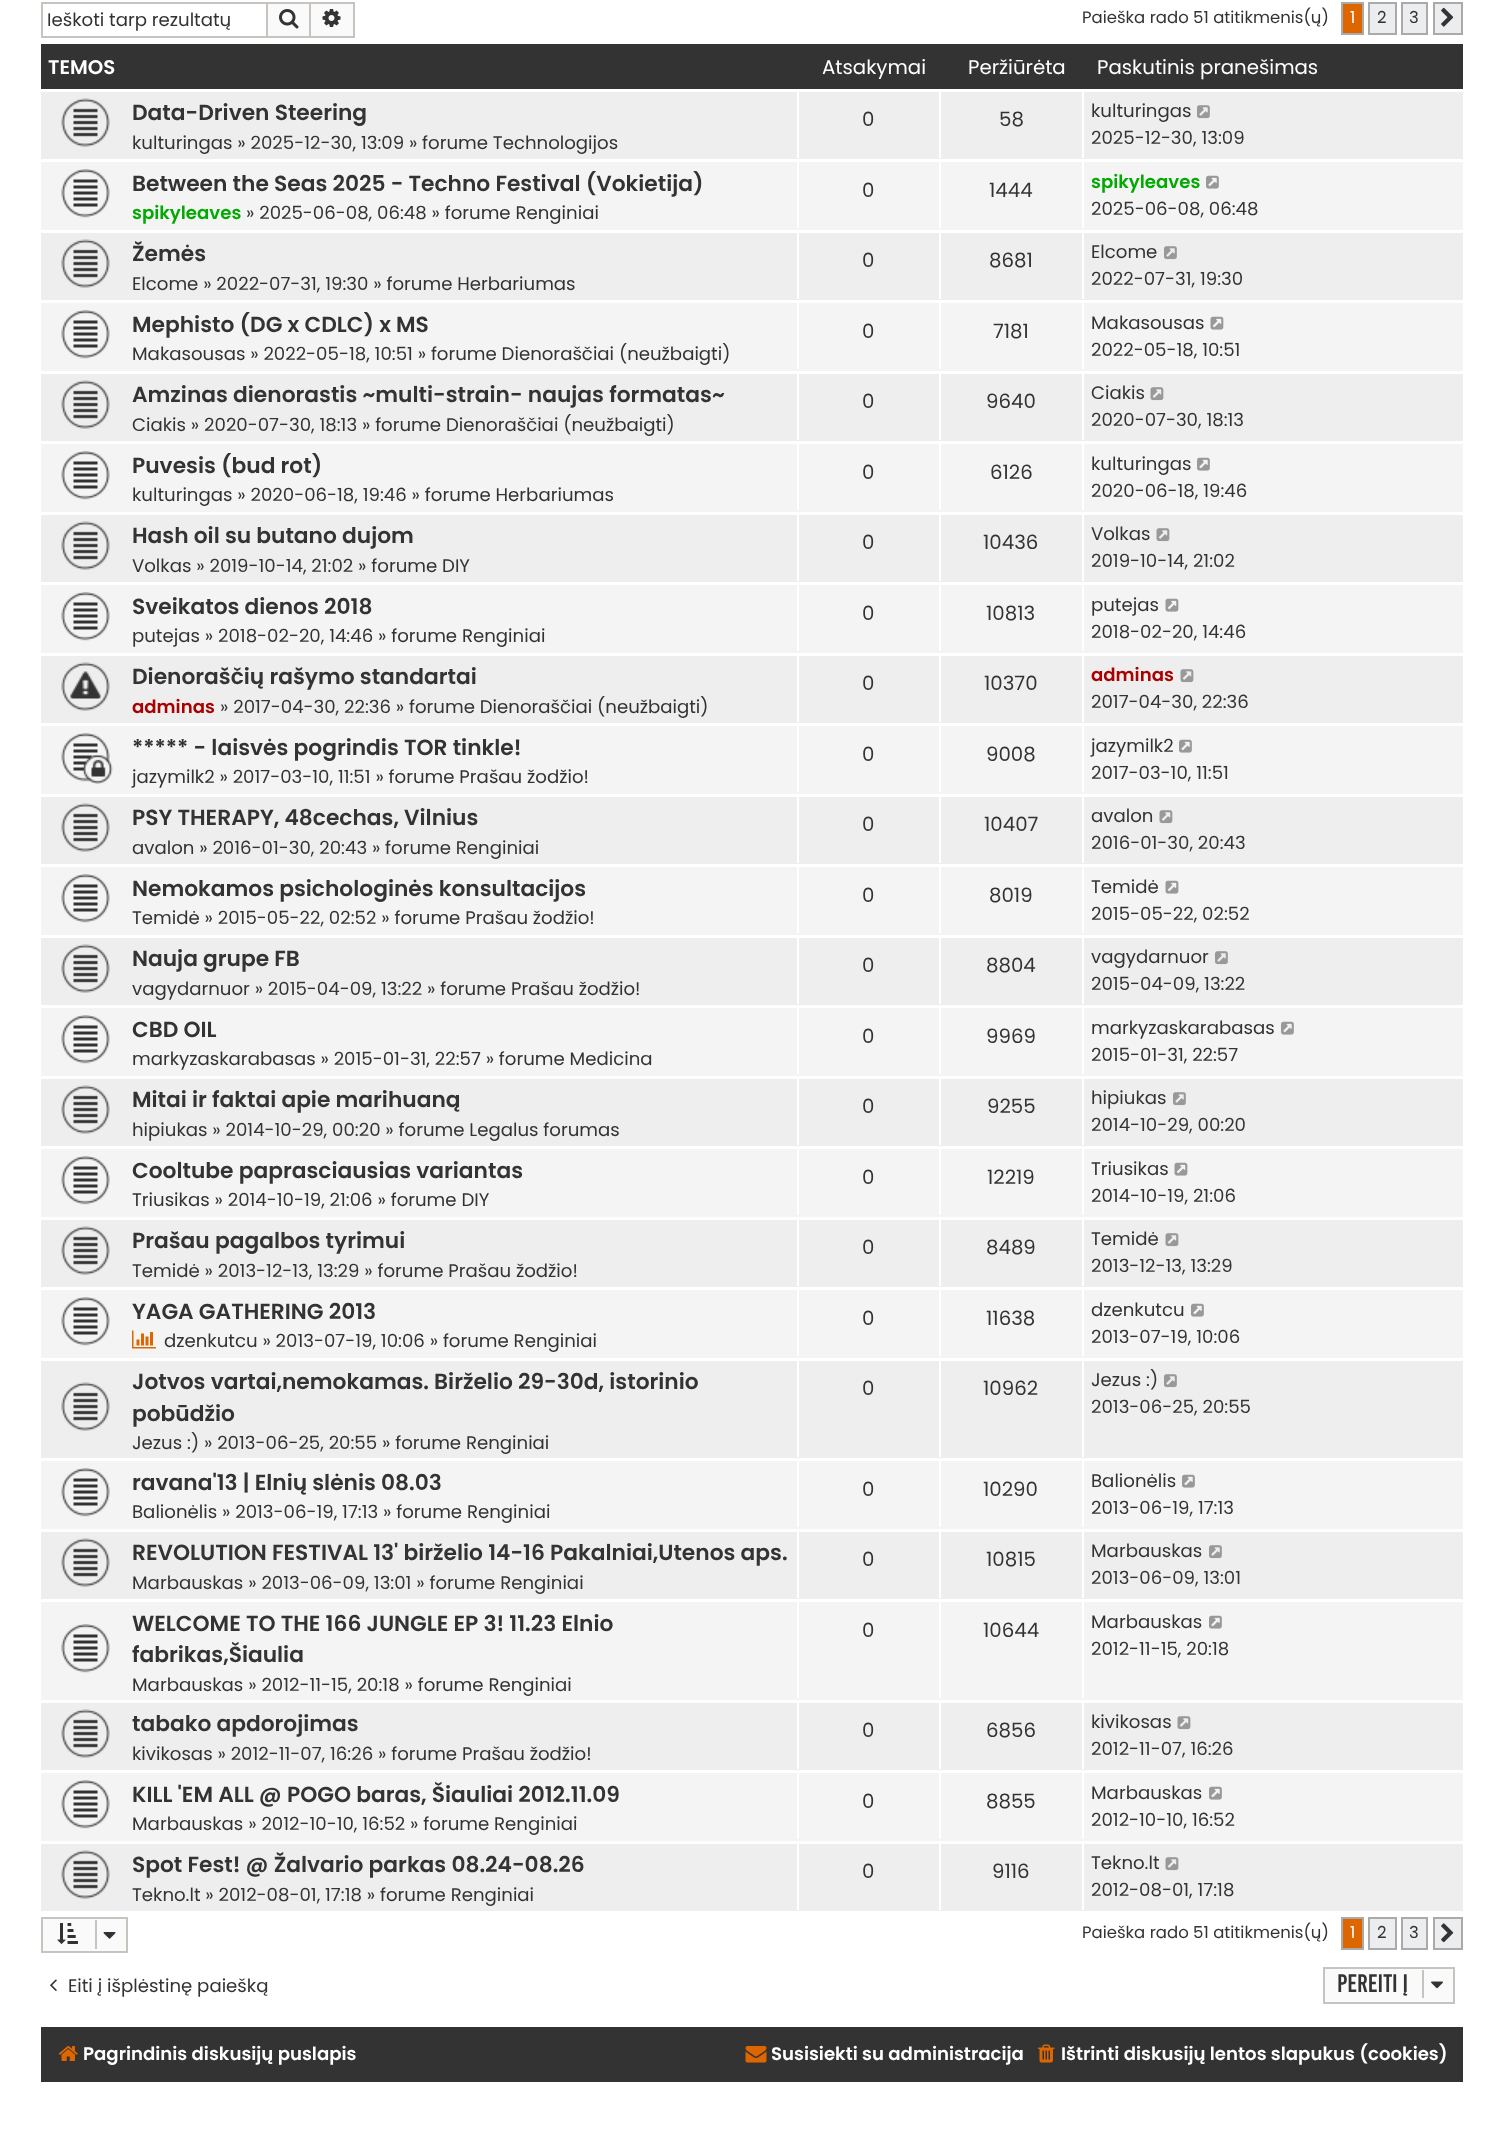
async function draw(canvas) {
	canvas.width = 1502;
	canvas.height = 2152;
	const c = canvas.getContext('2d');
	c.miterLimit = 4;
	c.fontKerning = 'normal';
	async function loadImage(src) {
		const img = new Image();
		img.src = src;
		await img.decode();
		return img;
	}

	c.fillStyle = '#fff';
	c.fillRect(0, 0, 1502, 2152);
	for (const [x, y, w, h, color] of [
		[41, 2, 225, 2, '#c7c3bf'],
		[41, 36, 225, 2, '#c7c3bf'],
		[41, 2, 2, 36, '#c7c3bf'],
	]) {
		c.fillStyle = color;
		c.fillRect(x, y, w, h);
	}
	c.font = '18.15px Poppins';
	c.fillStyle = '#333';
	c.fillText('Ieškoti tarp rezultatų', 47, 26);
	c.fillStyle = '#fafafa';
	c.beginPath();
	c.rect(267, 3, 43, 34);
	c.fill();
	c.strokeStyle = '#c7c3bf';
	c.lineWidth = 2;
	c.stroke();
	c.drawImage(await loadImage('img1.png'), 279, 9, 20, 20);
	for (const [x, y, w, h, color] of [
		[311, 4, 42, 32, '#fafafa'],
		[311, 2, 43, 2, '#c7c3bf'],
		[353, 2, 2, 36, '#c7c3bf'],
		[311, 36, 43, 2, '#c7c3bf'],
	]) {
		c.fillStyle = color;
		c.fillRect(x, y, w, h);
	}
	c.drawImage(await loadImage('img2.png'), 322, 9, 19, 18);
	c.font = '16.5px Poppins';
	c.fillStyle = '#333';
	c.fillText('Paieška rado 51 atitikmenis(ų)', 1082, 23);
	c.fillStyle = '#d60';
	c.beginPath();
	c.rect(1342, 3, 21, 31);
	c.fill();
	c.strokeStyle = '#aaa';
	c.stroke();
	c.fillStyle = '#fff';
	c.fillText('1', 1350, 23);
	c.fillStyle = '#ecedee';
	c.beginPath();
	c.rect(1369, 3, 27, 31);
	c.fill();
	c.stroke();
	c.fillStyle = '#333';
	c.fillText('2', 1377, 23);
	c.fillStyle = '#ecedee';
	c.beginPath();
	c.rect(1402, 3, 25, 31);
	c.fill();
	c.stroke();
	c.fillStyle = '#333';
	c.fillText('3', 1409, 23);
	c.fillStyle = '#ecedee';
	c.beginPath();
	c.rect(1434, 3, 28, 31);
	c.fill();
	c.stroke();
	c.drawImage(await loadImage('img3.png'), 1441, 7, 13, 20);
	c.fillStyle = '#333';
	c.fillRect(41, 44, 1422, 45);
	c.font = '600 19.75px Poppins';
	c.fillStyle = '#fff';
	c.fillText('TEMOS', 48, 74);
	c.font = '19.75px Poppins';
	for (const [text, x, y] of [
		['Atsakymai', 822, 74],
		['Peržiūrėta', 968, 74],
		['Paskutinis pranešimas', 1097, 74],
	]) {
		c.fillText(text, x, y);
	}
	c.fillStyle = '#eee';
	c.fillRect(41, 92, 1422, 67);
	c.drawImage(await loadImage('img4.png'), 61, 98, 49, 49);
	c.font = '600 21.75px Poppins';
	c.fillStyle = '#333';
	c.fillText('Data-Driven Steering', 132, 120);
	c.font = '18.15px Poppins';
	c.fillText('kulturingas » 2025-12-30, 13:09 » forume Technologijos', 132, 149);
	c.fillStyle = '#fff';
	c.fillRect(797, 92, 2, 66);
	c.font = '19.75px Poppins';
	c.fillStyle = '#333';
	c.fillText('0', 862, 126);
	c.fillStyle = '#fff';
	c.fillRect(939, 92, 2, 66);
	c.fillStyle = '#333';
	c.fillText('58', 999, 126);
	c.fillStyle = '#fff';
	c.fillRect(1082, 92, 2, 66);
	c.font = '18.15px Poppins';
	c.fillStyle = '#333';
	c.fillText('kulturingas', 1091, 117);
	c.drawImage(await loadImage('img5.png'), 1197, 105, 13, 14);
	c.fillText('2025-12-30, 13:09', 1091, 144);
	c.fillStyle = '#f4f4f4';
	c.fillRect(41, 162, 1422, 68);
	c.drawImage(await loadImage('img6.png'), 61, 169, 49, 49);
	c.font = '600 21.75px Poppins';
	c.fillStyle = '#333';
	c.fillText('Between the Seas 2025 - Techno Festival (Vokietija)', 132, 191);
	c.font = '600 18.15px Poppins';
	c.fillStyle = '#0a0';
	c.fillText('spikyleaves', 132, 219);
	c.font = '18.15px Poppins';
	c.fillStyle = '#333';
	c.fillText('» 2025-06-08, 06:48 » forume Renginiai', 246, 219);
	c.fillStyle = '#fff';
	c.fillRect(797, 162, 2, 66);
	c.font = '19.75px Poppins';
	c.fillStyle = '#333';
	c.fillText('0', 862, 197);
	c.fillStyle = '#fff';
	c.fillRect(939, 162, 2, 66);
	c.fillStyle = '#333';
	c.fillText('1444', 989, 197);
	c.fillStyle = '#fff';
	c.fillRect(1082, 162, 2, 66);
	c.font = '600 18.15px Poppins';
	c.fillStyle = '#0a0';
	c.fillText('spikyleaves', 1091, 188);
	c.drawImage(await loadImage('img7.png'), 1206, 175, 13, 14);
	c.font = '18.15px Poppins';
	c.fillStyle = '#333';
	c.fillText('2025-06-08, 06:48', 1091, 215);
	c.fillStyle = '#eee';
	c.fillRect(41, 233, 1422, 67);
	c.drawImage(await loadImage('img4.png'), 61, 239, 49, 49);
	c.font = '600 21.75px Poppins';
	c.fillStyle = '#333';
	c.fillText('Žemės', 132, 261);
	c.font = '18.15px Poppins';
	c.fillText('Elcome » 2022-07-31, 19:30 » forume Herbariumas', 132, 290);
	c.fillStyle = '#fff';
	c.fillRect(797, 233, 2, 66);
	c.font = '19.75px Poppins';
	c.fillStyle = '#333';
	c.fillText('0', 862, 267);
	c.fillStyle = '#fff';
	c.fillRect(939, 233, 2, 66);
	c.fillStyle = '#333';
	c.fillText('8681', 989, 267);
	c.fillStyle = '#fff';
	c.fillRect(1082, 233, 2, 66);
	c.font = '18.15px Poppins';
	c.fillStyle = '#333';
	c.fillText('Elcome', 1091, 258);
	c.drawImage(await loadImage('img5.png'), 1164, 246, 13, 14);
	c.fillText('2022-07-31, 19:30', 1091, 285);
	c.fillStyle = '#f4f4f4';
	c.fillRect(41, 303, 1422, 68);
	c.drawImage(await loadImage('img6.png'), 61, 310, 49, 49);
	c.font = '600 21.75px Poppins';
	c.fillStyle = '#333';
	c.fillText('Mephisto (DG x CDLC) x MS', 132, 332);
	c.font = '18.15px Poppins';
	c.fillText('Makasousas » 2022-05-18, 10:51 » forume Dienoraščiai (neužbaigti)', 132, 360);
	c.fillStyle = '#fff';
	c.fillRect(797, 303, 2, 66);
	c.font = '19.75px Poppins';
	c.fillStyle = '#333';
	c.fillText('0', 862, 338);
	c.fillStyle = '#fff';
	c.fillRect(939, 303, 2, 66);
	c.fillStyle = '#333';
	c.fillText('7181', 993, 338);
	c.fillStyle = '#fff';
	c.fillRect(1082, 303, 2, 66);
	c.font = '18.15px Poppins';
	c.fillStyle = '#333';
	c.fillText('Makasousas', 1091, 329);
	c.drawImage(await loadImage('img8.png'), 1210, 316, 14, 14);
	c.fillText('2022-05-18, 10:51', 1091, 356);
	c.fillStyle = '#eee';
	c.fillRect(41, 374, 1422, 67);
	c.drawImage(await loadImage('img4.png'), 61, 380, 49, 49);
	c.font = '600 21.75px Poppins';
	c.fillStyle = '#333';
	c.fillText('Amzinas dienorastis ~multi-strain- naujas formatas~', 132, 402);
	c.font = '18.15px Poppins';
	c.fillText('Ciakis » 2020-07-30, 18:13 » forume Dienoraščiai (neužbaigti)', 132, 431);
	c.fillStyle = '#fff';
	c.fillRect(797, 374, 2, 66);
	c.font = '19.75px Poppins';
	c.fillStyle = '#333';
	c.fillText('0', 862, 408);
	c.fillStyle = '#fff';
	c.fillRect(939, 374, 2, 66);
	c.fillStyle = '#333';
	c.fillText('9640', 986, 408);
	c.fillStyle = '#fff';
	c.fillRect(1082, 374, 2, 66);
	c.font = '18.15px Poppins';
	c.fillStyle = '#333';
	c.fillText('Ciakis', 1091, 399);
	c.drawImage(await loadImage('img9.png'), 1150, 387, 14, 14);
	c.fillText('2020-07-30, 18:13', 1091, 426);
	c.fillStyle = '#f4f4f4';
	c.fillRect(41, 444, 1422, 68);
	c.drawImage(await loadImage('img6.png'), 61, 451, 49, 49);
	c.font = '600 21.75px Poppins';
	c.fillStyle = '#333';
	c.fillText('Puvesis (bud rot)', 132, 473);
	c.font = '18.15px Poppins';
	c.fillText('kulturingas » 2020-06-18, 19:46 » forume Herbariumas', 132, 501);
	c.fillStyle = '#fff';
	c.fillRect(797, 444, 2, 66);
	c.font = '19.75px Poppins';
	c.fillStyle = '#333';
	c.fillText('0', 862, 479);
	c.fillStyle = '#fff';
	c.fillRect(939, 444, 2, 66);
	c.fillStyle = '#333';
	c.fillText('6126', 990, 479);
	c.fillStyle = '#fff';
	c.fillRect(1082, 444, 2, 66);
	c.font = '18.15px Poppins';
	c.fillStyle = '#333';
	c.fillText('kulturingas', 1091, 470);
	c.drawImage(await loadImage('img7.png'), 1197, 457, 13, 14);
	c.fillText('2020-06-18, 19:46', 1091, 497);
	c.fillStyle = '#eee';
	c.fillRect(41, 515, 1422, 67);
	c.drawImage(await loadImage('img4.png'), 61, 521, 49, 49);
	c.font = '600 21.75px Poppins';
	c.fillStyle = '#333';
	c.fillText('Hash oil su butano dujom', 132, 543);
	c.font = '18.15px Poppins';
	c.fillText('Volkas » 2019-10-14, 21:02 » forume DIY', 132, 572);
	c.fillStyle = '#fff';
	c.fillRect(797, 515, 2, 66);
	c.font = '19.75px Poppins';
	c.fillStyle = '#333';
	c.fillText('0', 862, 549);
	c.fillStyle = '#fff';
	c.fillRect(939, 515, 2, 66);
	c.fillStyle = '#333';
	c.fillText('10436', 983, 549);
	c.fillStyle = '#fff';
	c.fillRect(1082, 515, 2, 66);
	c.font = '18.15px Poppins';
	c.fillStyle = '#333';
	c.fillText('Volkas', 1091, 540);
	c.drawImage(await loadImage('img9.png'), 1156, 528, 14, 14);
	c.fillText('2019-10-14, 21:02', 1091, 567);
	c.fillStyle = '#f4f4f4';
	c.fillRect(41, 585, 1422, 68);
	c.drawImage(await loadImage('img6.png'), 61, 592, 49, 49);
	c.font = '600 21.75px Poppins';
	c.fillStyle = '#333';
	c.fillText('Sveikatos dienos 2018', 132, 614);
	c.font = '18.15px Poppins';
	c.fillText('putejas » 2018-02-20, 14:46 » forume Renginiai', 132, 642);
	c.fillStyle = '#fff';
	c.fillRect(797, 585, 2, 66);
	c.font = '19.75px Poppins';
	c.fillStyle = '#333';
	c.fillText('0', 862, 620);
	c.fillStyle = '#fff';
	c.fillRect(939, 585, 2, 66);
	c.fillStyle = '#333';
	c.fillText('10813', 986, 620);
	c.fillStyle = '#fff';
	c.fillRect(1082, 585, 2, 66);
	c.font = '18.15px Poppins';
	c.fillStyle = '#333';
	c.fillText('putejas', 1091, 611);
	c.drawImage(await loadImage('img8.png'), 1165, 598, 14, 14);
	c.fillText('2018-02-20, 14:46', 1091, 638);
	c.fillStyle = '#eee';
	c.fillRect(41, 656, 1422, 67);
	c.drawImage(await loadImage('img10.png'), 61, 662, 49, 49);
	c.font = '600 21.75px Poppins';
	c.fillStyle = '#333';
	c.fillText('Dienoraščių rašymo standartai', 132, 684);
	c.font = '600 18.15px Poppins';
	c.fillStyle = '#a00';
	c.fillText('adminas', 132, 713);
	c.font = '18.15px Poppins';
	c.fillStyle = '#333';
	c.fillText('» 2017-04-30, 22:36 » forume Dienoraščiai (neužbaigti)', 220, 713);
	c.fillStyle = '#fff';
	c.fillRect(797, 656, 2, 66);
	c.font = '19.75px Poppins';
	c.fillStyle = '#333';
	c.fillText('0', 862, 690);
	c.fillStyle = '#fff';
	c.fillRect(939, 656, 2, 66);
	c.fillStyle = '#333';
	c.fillText('10370', 984, 690);
	c.fillStyle = '#fff';
	c.fillRect(1082, 656, 2, 66);
	c.font = '600 18.15px Poppins';
	c.fillStyle = '#a00';
	c.fillText('adminas', 1091, 681);
	c.drawImage(await loadImage('img9.png'), 1180, 669, 14, 14);
	c.font = '18.15px Poppins';
	c.fillStyle = '#333';
	c.fillText('2017-04-30, 22:36', 1091, 708);
	c.fillStyle = '#f4f4f4';
	c.fillRect(41, 726, 1422, 68);
	c.drawImage(await loadImage('img11.png'), 61, 733, 52, 51);
	c.font = '600 21.75px Poppins';
	c.fillStyle = '#333';
	c.fillText('***** - laisvės pogrindis TOR tinkle!', 132, 755);
	c.font = '18.15px Poppins';
	c.fillText('jazymilk2 » 2017-03-10, 11:51 » forume Prašau žodžio!', 132, 783);
	c.fillStyle = '#fff';
	c.fillRect(797, 726, 2, 66);
	c.font = '19.75px Poppins';
	c.fillStyle = '#333';
	c.fillText('0', 862, 761);
	c.fillStyle = '#fff';
	c.fillRect(939, 726, 2, 66);
	c.fillStyle = '#333';
	c.fillText('9008', 986, 761);
	c.fillStyle = '#fff';
	c.fillRect(1082, 726, 2, 66);
	c.font = '18.15px Poppins';
	c.fillStyle = '#333';
	c.fillText('jazymilk2', 1091, 752);
	c.drawImage(await loadImage('img7.png'), 1179, 739, 13, 14);
	c.fillText('2017-03-10, 11:51', 1091, 779);
	c.fillStyle = '#eee';
	c.fillRect(41, 797, 1422, 67);
	c.drawImage(await loadImage('img4.png'), 61, 803, 49, 49);
	c.font = '600 21.75px Poppins';
	c.fillStyle = '#333';
	c.fillText('PSY THERAPY, 48cechas, Vilnius', 132, 825);
	c.font = '18.15px Poppins';
	c.fillText('avalon » 2016-01-30, 20:43 » forume Renginiai', 132, 854);
	c.fillStyle = '#fff';
	c.fillRect(797, 797, 2, 66);
	c.font = '19.75px Poppins';
	c.fillStyle = '#333';
	c.fillText('0', 862, 831);
	c.fillStyle = '#fff';
	c.fillRect(939, 797, 2, 66);
	c.fillStyle = '#333';
	c.fillText('10407', 984, 831);
	c.fillStyle = '#fff';
	c.fillRect(1082, 797, 2, 66);
	c.font = '18.15px Poppins';
	c.fillStyle = '#333';
	c.fillText('avalon', 1091, 822);
	c.drawImage(await loadImage('img9.png'), 1159, 810, 14, 14);
	c.fillText('2016-01-30, 20:43', 1091, 849);
	c.fillStyle = '#f4f4f4';
	c.fillRect(41, 867, 1422, 68);
	c.drawImage(await loadImage('img6.png'), 61, 874, 49, 49);
	c.font = '600 21.75px Poppins';
	c.fillStyle = '#333';
	c.fillText('Nemokamos psichologinės konsultacijos', 132, 896);
	c.font = '18.15px Poppins';
	c.fillText('Temidė » 2015-05-22, 02:52 » forume Prašau žodžio!', 132, 924);
	c.fillStyle = '#fff';
	c.fillRect(797, 867, 2, 66);
	c.font = '19.75px Poppins';
	c.fillStyle = '#333';
	c.fillText('0', 862, 902);
	c.fillStyle = '#fff';
	c.fillRect(939, 867, 2, 66);
	c.fillStyle = '#333';
	c.fillText('8019', 989, 902);
	c.fillStyle = '#fff';
	c.fillRect(1082, 867, 2, 66);
	c.font = '18.15px Poppins';
	c.fillStyle = '#333';
	c.fillText('Temidė', 1091, 893);
	c.drawImage(await loadImage('img8.png'), 1165, 880, 14, 14);
	c.fillText('2015-05-22, 02:52', 1091, 920);
	c.fillStyle = '#eee';
	c.fillRect(41, 938, 1422, 67);
	c.drawImage(await loadImage('img4.png'), 61, 944, 49, 49);
	c.font = '600 21.75px Poppins';
	c.fillStyle = '#333';
	c.fillText('Nauja grupe FB', 132, 966);
	c.font = '18.15px Poppins';
	c.fillText('vagydarnuor » 2015-04-09, 13:22 » forume Prašau žodžio!', 132, 995);
	c.fillStyle = '#fff';
	c.fillRect(797, 938, 2, 66);
	c.font = '19.75px Poppins';
	c.fillStyle = '#333';
	c.fillText('0', 862, 972);
	c.fillStyle = '#fff';
	c.fillRect(939, 938, 2, 66);
	c.fillStyle = '#333';
	c.fillText('8804', 986, 972);
	c.fillStyle = '#fff';
	c.fillRect(1082, 938, 2, 66);
	c.font = '18.15px Poppins';
	c.fillStyle = '#333';
	c.fillText('vagydarnuor', 1091, 963);
	c.drawImage(await loadImage('img5.png'), 1215, 951, 13, 14);
	c.fillText('2015-04-09, 13:22', 1091, 990);
	c.fillStyle = '#f4f4f4';
	c.fillRect(41, 1008, 1422, 68);
	c.drawImage(await loadImage('img6.png'), 61, 1015, 49, 49);
	c.font = '600 21.75px Poppins';
	c.fillStyle = '#333';
	c.fillText('CBD OIL', 132, 1037);
	c.font = '18.15px Poppins';
	c.fillText('markyzaskarabasas » 2015-01-31, 22:57 » forume Medicina', 132, 1065);
	c.fillStyle = '#fff';
	c.fillRect(797, 1008, 2, 66);
	c.font = '19.75px Poppins';
	c.fillStyle = '#333';
	c.fillText('0', 862, 1043);
	c.fillStyle = '#fff';
	c.fillRect(939, 1008, 2, 66);
	c.fillStyle = '#333';
	c.fillText('9969', 986, 1043);
	c.fillStyle = '#fff';
	c.fillRect(1082, 1008, 2, 66);
	c.font = '18.15px Poppins';
	c.fillStyle = '#333';
	c.fillText('markyzaskarabasas', 1091, 1034);
	c.drawImage(await loadImage('img7.png'), 1281, 1021, 13, 14);
	c.fillText('2015-01-31, 22:57', 1091, 1061);
	c.fillStyle = '#eee';
	c.fillRect(41, 1079, 1422, 67);
	c.drawImage(await loadImage('img4.png'), 61, 1085, 49, 49);
	c.font = '600 21.75px Poppins';
	c.fillStyle = '#333';
	c.fillText('Mitai ir faktai apie marihuaną', 132, 1107);
	c.font = '18.15px Poppins';
	c.fillText('hipiukas » 2014-10-29, 00:20 » forume Legalus forumas', 132, 1136);
	c.fillStyle = '#fff';
	c.fillRect(797, 1079, 2, 66);
	c.font = '19.75px Poppins';
	c.fillStyle = '#333';
	c.fillText('0', 862, 1113);
	c.fillStyle = '#fff';
	c.fillRect(939, 1079, 2, 66);
	c.fillStyle = '#333';
	c.fillText('9255', 987, 1113);
	c.fillStyle = '#fff';
	c.fillRect(1082, 1079, 2, 66);
	c.font = '18.15px Poppins';
	c.fillStyle = '#333';
	c.fillText('hipiukas', 1091, 1104);
	c.drawImage(await loadImage('img5.png'), 1173, 1092, 13, 14);
	c.fillText('2014-10-29, 00:20', 1091, 1131);
	c.fillStyle = '#f4f4f4';
	c.fillRect(41, 1149, 1422, 68);
	c.drawImage(await loadImage('img6.png'), 61, 1156, 49, 49);
	c.font = '600 21.75px Poppins';
	c.fillStyle = '#333';
	c.fillText('Cooltube paprasciausias variantas', 132, 1178);
	c.font = '18.15px Poppins';
	c.fillText('Triusikas » 2014-10-19, 21:06 » forume DIY', 132, 1206);
	c.fillStyle = '#fff';
	c.fillRect(797, 1149, 2, 66);
	c.font = '19.75px Poppins';
	c.fillStyle = '#333';
	c.fillText('0', 862, 1184);
	c.fillStyle = '#fff';
	c.fillRect(939, 1149, 2, 66);
	c.fillStyle = '#333';
	c.fillText('12219', 987, 1184);
	c.fillStyle = '#fff';
	c.fillRect(1082, 1149, 2, 66);
	c.font = '18.15px Poppins';
	c.fillStyle = '#333';
	c.fillText('Triusikas', 1091, 1175);
	c.drawImage(await loadImage('img8.png'), 1174, 1162, 14, 14);
	c.fillText('2014-10-19, 21:06', 1091, 1202);
	c.fillStyle = '#eee';
	c.fillRect(41, 1220, 1422, 67);
	c.drawImage(await loadImage('img4.png'), 61, 1226, 49, 49);
	c.font = '600 21.75px Poppins';
	c.fillStyle = '#333';
	c.fillText('Prašau pagalbos tyrimui', 132, 1248);
	c.font = '18.15px Poppins';
	c.fillText('Temidė » 2013-12-13, 13:29 » forume Prašau žodžio!', 132, 1277);
	c.fillStyle = '#fff';
	c.fillRect(797, 1220, 2, 66);
	c.font = '19.75px Poppins';
	c.fillStyle = '#333';
	c.fillText('0', 862, 1254);
	c.fillStyle = '#fff';
	c.fillRect(939, 1220, 2, 66);
	c.fillStyle = '#333';
	c.fillText('8489', 986, 1254);
	c.fillStyle = '#fff';
	c.fillRect(1082, 1220, 2, 66);
	c.font = '18.15px Poppins';
	c.fillStyle = '#333';
	c.fillText('Temidė', 1091, 1245);
	c.drawImage(await loadImage('img9.png'), 1165, 1233, 14, 14);
	c.fillText('2013-12-13, 13:29', 1091, 1272);
	c.fillStyle = '#f4f4f4';
	c.fillRect(41, 1290, 1422, 68);
	c.drawImage(await loadImage('img6.png'), 61, 1297, 49, 49);
	c.font = '600 21.75px Poppins';
	c.fillStyle = '#333';
	c.fillText('YAGA GATHERING 2013', 132, 1319);
	c.drawImage(await loadImage('img12.png'), 132, 1330, 24, 19);
	c.font = '18.15px Poppins';
	c.fillText('dzenkutcu » 2013-07-19, 10:06 » forume Renginiai', 164, 1347);
	c.fillStyle = '#fff';
	c.fillRect(797, 1290, 2, 66);
	c.font = '19.75px Poppins';
	c.fillStyle = '#333';
	c.fillText('0', 862, 1325);
	c.fillStyle = '#fff';
	c.fillRect(939, 1290, 2, 66);
	c.fillStyle = '#333';
	c.fillText('11638', 986, 1325);
	c.fillStyle = '#fff';
	c.fillRect(1082, 1290, 2, 66);
	c.font = '18.15px Poppins';
	c.fillStyle = '#333';
	c.fillText('dzenkutcu', 1091, 1316);
	c.drawImage(await loadImage('img7.png'), 1191, 1303, 13, 14);
	c.fillText('2013-07-19, 10:06', 1091, 1343);
	c.fillStyle = '#eee';
	c.fillRect(41, 1361, 1422, 97);
	c.drawImage(await loadImage('img4.png'), 61, 1382, 49, 49);
	c.font = '600 21.75px Poppins';
	c.fillStyle = '#333';
	c.fillText('Jotvos vartai,nemokamas. Birželio 29-30d, istorinio', 132, 1389);
	c.fillText('pobūdžio', 132, 1421);
	c.font = '18.15px Poppins';
	c.fillText('Jezus :) » 2013-06-25, 20:55 » forume Renginiai', 132, 1449);
	c.fillStyle = '#fff';
	c.fillRect(797, 1361, 2, 96);
	c.font = '19.75px Poppins';
	c.fillStyle = '#333';
	c.fillText('0', 862, 1395);
	c.fillStyle = '#fff';
	c.fillRect(939, 1361, 2, 96);
	c.fillStyle = '#333';
	c.fillText('10962', 983, 1395);
	c.fillStyle = '#fff';
	c.fillRect(1082, 1361, 2, 96);
	c.font = '18.15px Poppins';
	c.fillStyle = '#333';
	c.fillText('Jezus :)', 1091, 1386);
	c.drawImage(await loadImage('img5.png'), 1164, 1374, 13, 14);
	c.fillText('2013-06-25, 20:55', 1091, 1413);
	c.fillStyle = '#f4f4f4';
	c.fillRect(41, 1461, 1422, 68);
	c.drawImage(await loadImage('img6.png'), 61, 1468, 49, 49);
	c.font = '600 21.75px Poppins';
	c.fillStyle = '#333';
	c.fillText('ravana\'13 | Elnių slėnis 08.03', 132, 1490);
	c.font = '18.15px Poppins';
	c.fillText('Balionėlis » 2013-06-19, 17:13 » forume Renginiai', 132, 1518);
	c.fillStyle = '#fff';
	c.fillRect(797, 1461, 2, 66);
	c.font = '19.75px Poppins';
	c.fillStyle = '#333';
	c.fillText('0', 862, 1496);
	c.fillStyle = '#fff';
	c.fillRect(939, 1461, 2, 66);
	c.fillStyle = '#333';
	c.fillText('10290', 983, 1496);
	c.fillStyle = '#fff';
	c.fillRect(1082, 1461, 2, 66);
	c.font = '18.15px Poppins';
	c.fillStyle = '#333';
	c.fillText('Balionėlis', 1091, 1487);
	c.drawImage(await loadImage('img7.png'), 1182, 1474, 13, 14);
	c.fillText('2013-06-19, 17:13', 1091, 1514);
	c.fillStyle = '#eee';
	c.fillRect(41, 1532, 1422, 67);
	c.drawImage(await loadImage('img4.png'), 61, 1538, 49, 49);
	c.font = '600 21.75px Poppins';
	c.fillStyle = '#333';
	c.fillText('REVOLUTION FESTIVAL 13\' birželio 14-16 Pakalniai,Utenos aps.', 132, 1560);
	c.font = '18.15px Poppins';
	c.fillText('Marbauskas » 2013-06-09, 13:01 » forume Renginiai', 132, 1589);
	c.fillStyle = '#fff';
	c.fillRect(797, 1532, 2, 66);
	c.font = '19.75px Poppins';
	c.fillStyle = '#333';
	c.fillText('0', 862, 1566);
	c.fillStyle = '#fff';
	c.fillRect(939, 1532, 2, 66);
	c.fillStyle = '#333';
	c.fillText('10815', 986, 1566);
	c.fillStyle = '#fff';
	c.fillRect(1082, 1532, 2, 66);
	c.font = '18.15px Poppins';
	c.fillStyle = '#333';
	c.fillText('Marbauskas', 1091, 1557);
	c.drawImage(await loadImage('img5.png'), 1209, 1545, 13, 14);
	c.fillText('2013-06-09, 13:01', 1091, 1584);
	c.fillStyle = '#f4f4f4';
	c.fillRect(41, 1602, 1422, 98);
	c.drawImage(await loadImage('img6.png'), 61, 1624, 49, 49);
	c.font = '600 21.75px Poppins';
	c.fillStyle = '#333';
	c.fillText('WELCOME TO THE 166 JUNGLE EP 3! 11.23 Elnio', 132, 1631);
	c.fillText('fabrikas,Šiaulia', 132, 1662);
	c.font = '18.15px Poppins';
	c.fillText('Marbauskas » 2012-11-15, 20:18 » forume Renginiai', 132, 1691);
	c.fillStyle = '#fff';
	c.fillRect(797, 1602, 2, 96);
	c.font = '19.75px Poppins';
	c.fillStyle = '#333';
	c.fillText('0', 862, 1637);
	c.fillStyle = '#fff';
	c.fillRect(939, 1602, 2, 96);
	c.fillStyle = '#333';
	c.fillText('10644', 983, 1637);
	c.fillStyle = '#fff';
	c.fillRect(1082, 1602, 2, 96);
	c.font = '18.15px Poppins';
	c.fillStyle = '#333';
	c.fillText('Marbauskas', 1091, 1628);
	c.drawImage(await loadImage('img7.png'), 1209, 1615, 13, 14);
	c.fillText('2012-11-15, 20:18', 1091, 1655);
	c.fillStyle = '#eee';
	c.fillRect(41, 1703, 1422, 67);
	c.drawImage(await loadImage('img4.png'), 61, 1709, 49, 49);
	c.font = '600 21.75px Poppins';
	c.fillStyle = '#333';
	c.fillText('tabako apdorojimas', 132, 1731);
	c.font = '18.15px Poppins';
	c.fillText('kivikosas » 2012-11-07, 16:26 » forume Prašau žodžio!', 132, 1760);
	c.fillStyle = '#fff';
	c.fillRect(797, 1703, 2, 66);
	c.font = '19.75px Poppins';
	c.fillStyle = '#333';
	c.fillText('0', 862, 1737);
	c.fillStyle = '#fff';
	c.fillRect(939, 1703, 2, 66);
	c.fillStyle = '#333';
	c.fillText('6856', 986, 1737);
	c.fillStyle = '#fff';
	c.fillRect(1082, 1703, 2, 66);
	c.font = '18.15px Poppins';
	c.fillStyle = '#333';
	c.fillText('kivikosas', 1091, 1728);
	c.drawImage(await loadImage('img9.png'), 1177, 1716, 14, 14);
	c.fillText('2012-11-07, 16:26', 1091, 1755);
	c.fillStyle = '#f4f4f4';
	c.fillRect(41, 1773, 1422, 68);
	c.drawImage(await loadImage('img6.png'), 61, 1780, 49, 49);
	c.font = '600 21.75px Poppins';
	c.fillStyle = '#333';
	c.fillText('KILL \'EM ALL @ POGO baras, Šiauliai 2012.11.09', 132, 1802);
	c.font = '18.15px Poppins';
	c.fillText('Marbauskas » 2012-10-10, 16:52 » forume Renginiai', 132, 1830);
	c.fillStyle = '#fff';
	c.fillRect(797, 1773, 2, 66);
	c.font = '19.75px Poppins';
	c.fillStyle = '#333';
	c.fillText('0', 862, 1808);
	c.fillStyle = '#fff';
	c.fillRect(939, 1773, 2, 66);
	c.fillStyle = '#333';
	c.fillText('8855', 986, 1808);
	c.fillStyle = '#fff';
	c.fillRect(1082, 1773, 2, 66);
	c.font = '18.15px Poppins';
	c.fillStyle = '#333';
	c.fillText('Marbauskas', 1091, 1799);
	c.drawImage(await loadImage('img7.png'), 1209, 1786, 13, 14);
	c.fillText('2012-10-10, 16:52', 1091, 1826);
	c.fillStyle = '#eee';
	c.fillRect(41, 1844, 1422, 67);
	c.drawImage(await loadImage('img4.png'), 61, 1850, 49, 49);
	c.font = '600 21.75px Poppins';
	c.fillStyle = '#333';
	c.fillText('Spot Fest! @ Žalvario parkas 08.24-08.26', 132, 1872);
	c.font = '18.15px Poppins';
	c.fillText('Tekno.lt » 2012-08-01, 17:18 » forume Renginiai', 132, 1901);
	c.fillStyle = '#fff';
	c.fillRect(797, 1844, 2, 66);
	c.font = '19.75px Poppins';
	c.fillStyle = '#333';
	c.fillText('0', 862, 1878);
	c.fillStyle = '#fff';
	c.fillRect(939, 1844, 2, 66);
	c.fillStyle = '#333';
	c.fillText('9116', 992, 1878);
	c.fillStyle = '#fff';
	c.fillRect(1082, 1844, 2, 66);
	c.font = '18.15px Poppins';
	c.fillStyle = '#333';
	c.fillText('Tekno.lt', 1091, 1869);
	c.drawImage(await loadImage('img9.png'), 1165, 1857, 14, 14);
	c.fillText('2012-08-01, 17:18', 1091, 1896);
	c.fillStyle = '#fafafa';
	c.beginPath();
	c.rect(42, 1918, 85, 34);
	c.fill();
	c.strokeStyle = '#c7c3bf';
	c.stroke();
	c.drawImage(await loadImage('img13.png'), 57, 1923, 21, 21);
	c.fillStyle = '#c7c3bf';
	c.fillRect(95, 1920, 2, 29);
	c.drawImage(await loadImage('img14.png'), 103, 1932, 13, 7);
	c.font = '16.5px Poppins';
	c.fillStyle = '#333';
	c.fillText('Paieška rado 51 atitikmenis(ų)', 1082, 1938);
	c.fillStyle = '#d60';
	c.beginPath();
	c.rect(1342, 1918, 21, 31);
	c.fill();
	c.strokeStyle = '#aaa';
	c.stroke();
	c.fillStyle = '#fff';
	c.fillText('1', 1350, 1938);
	c.fillStyle = '#ecedee';
	c.beginPath();
	c.rect(1369, 1918, 27, 31);
	c.fill();
	c.stroke();
	c.fillStyle = '#333';
	c.fillText('2', 1377, 1938);
	c.fillStyle = '#ecedee';
	c.beginPath();
	c.rect(1402, 1918, 25, 31);
	c.fill();
	c.stroke();
	c.fillStyle = '#333';
	c.fillText('3', 1409, 1938);
	c.fillStyle = '#ecedee';
	c.beginPath();
	c.rect(1434, 1918, 28, 31);
	c.fill();
	c.stroke();
	c.drawImage(await loadImage('img15.png'), 1441, 1923, 13, 20);
	c.drawImage(await loadImage('img16.png'), 50, 1979, 7, 12);
	c.font = '18.15px Poppins';
	c.fillStyle = '#333';
	c.fillText('Eiti į išplėstinę paiešką', 68, 1992);
	c.fillStyle = '#fafafa';
	c.beginPath();
	c.rect(1324, 1968, 130, 35);
	c.fill();
	c.strokeStyle = '#c7c3bf';
	c.stroke();
	c.font = '19.5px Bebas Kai';
	c.fillStyle = '#333';
	c.fillText('Pereiti į', 1337, 1992);
	c.fillStyle = '#c7c3bf';
	c.fillRect(1422, 1970, 2, 28);
	c.drawImage(await loadImage('img17.png'), 1431, 1981, 12, 8);
	c.fillStyle = '#333';
	c.fillRect(41, 2027, 1422, 55);
	c.drawImage(await loadImage('img18.png'), 58, 2046, 20, 15);
	c.font = '600 18.15px Poppins';
	c.fillStyle = '#fff';
	c.fillText('Pagrindinis diskusijų puslapis', 83, 2060);
	c.drawImage(await loadImage('img19.png'), 745, 2046, 22, 17);
	c.fillText('Susisiekti su administracija', 771, 2060);
	c.drawImage(await loadImage('img20.png'), 1038, 2044, 17, 19);
	c.fillText('Ištrinti diskusijų lentos slapukus (cookies)', 1061, 2060);
}

draw(document.querySelector('canvas'));
